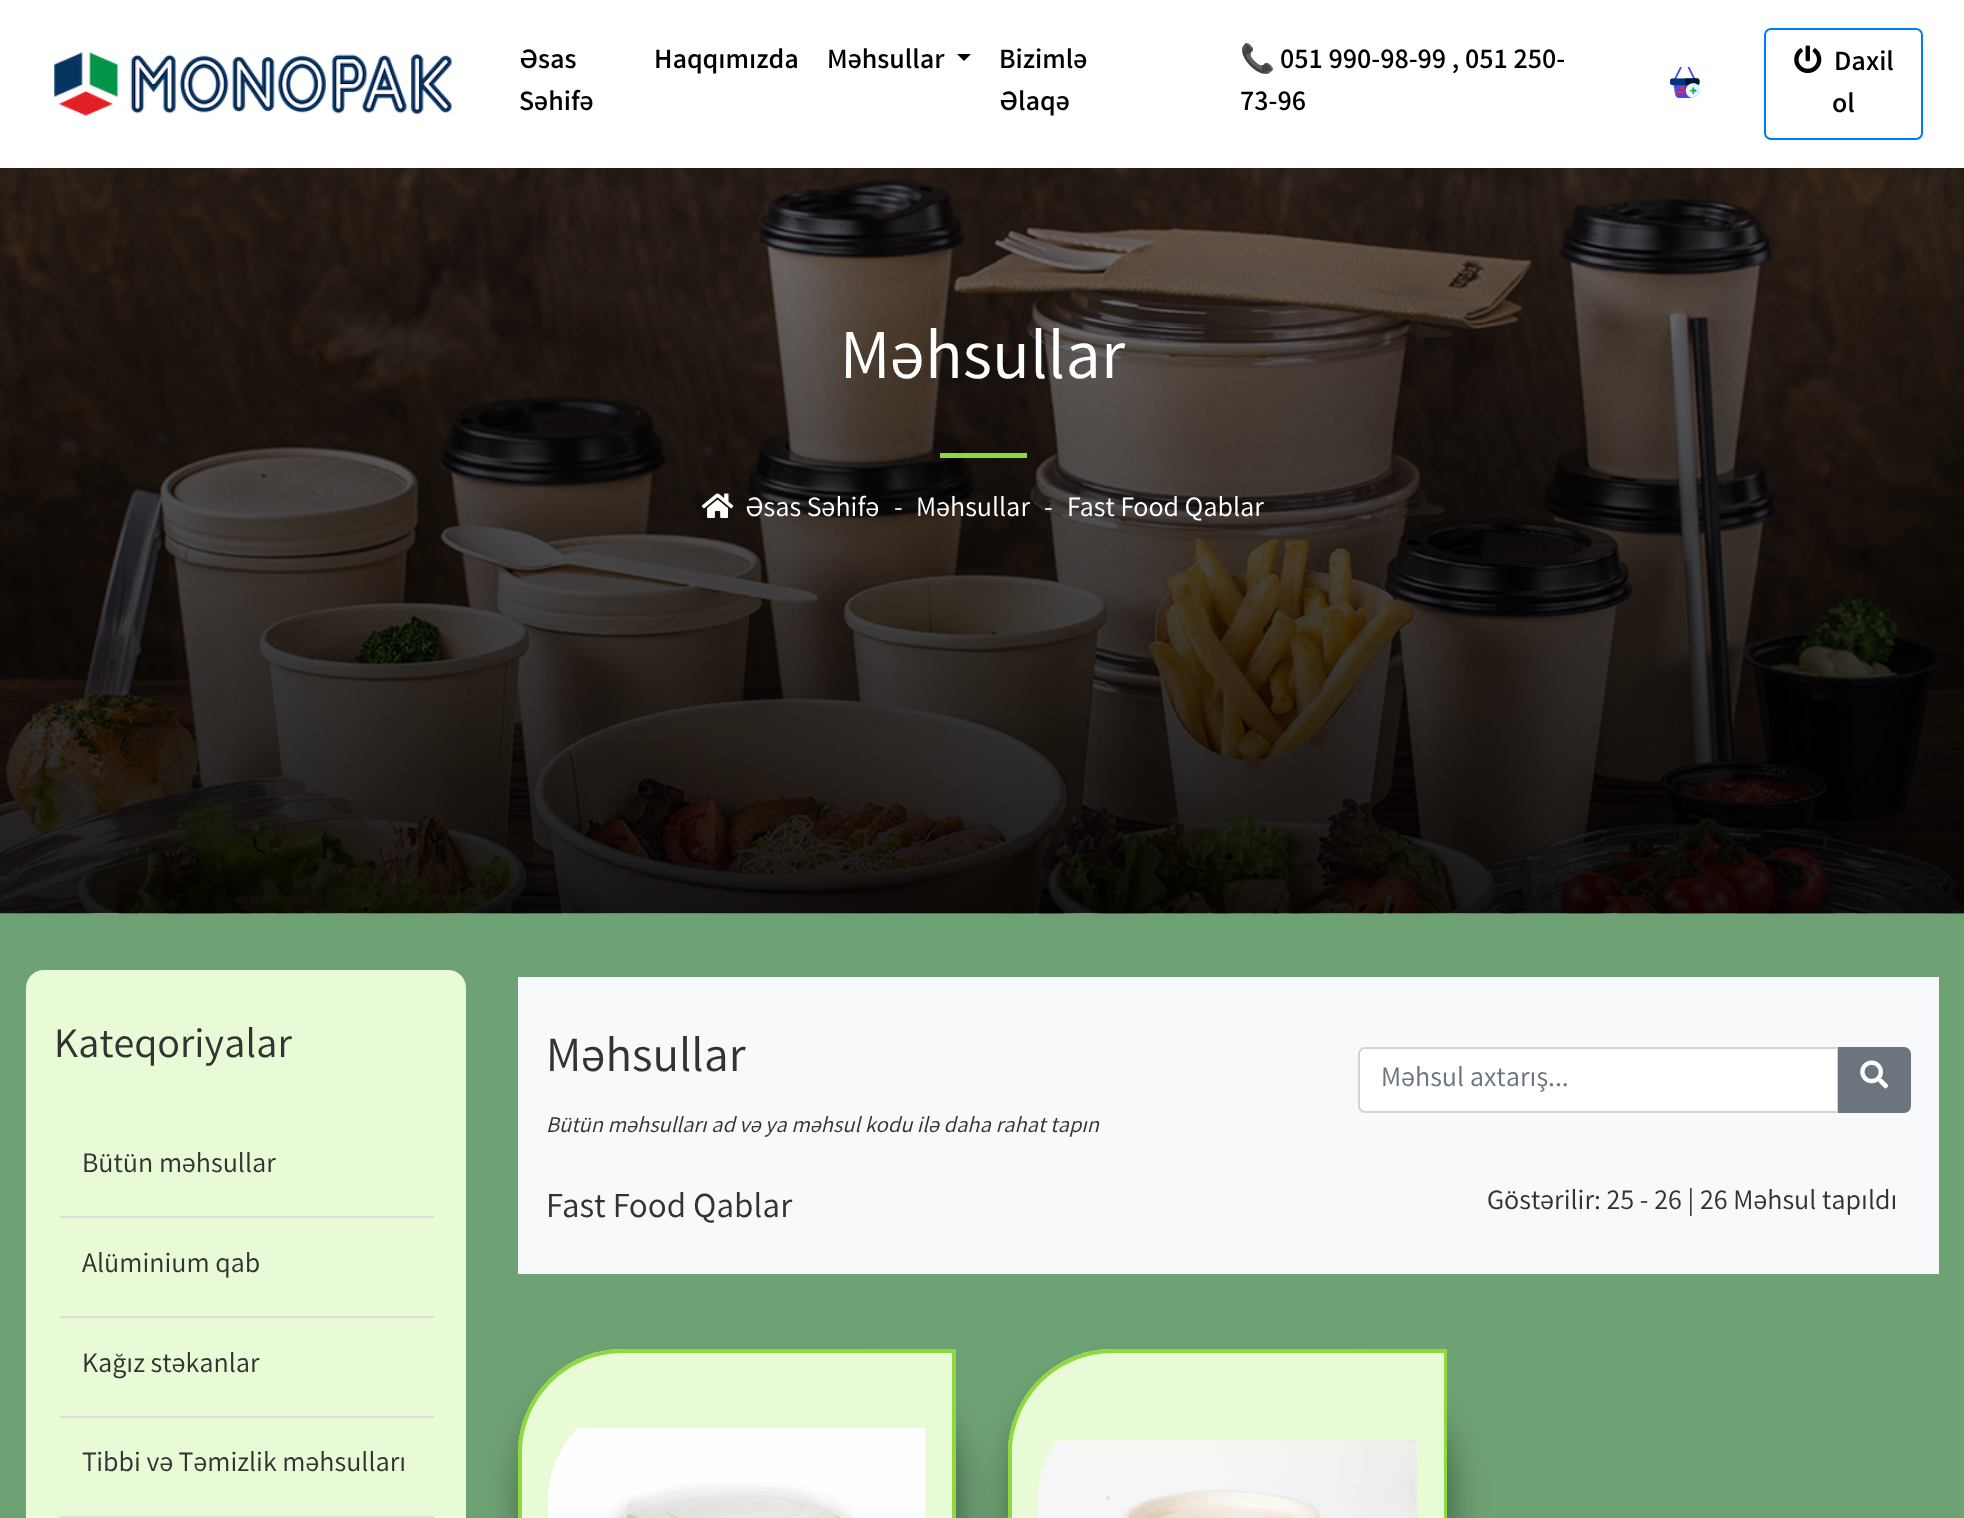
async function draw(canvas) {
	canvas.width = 1964;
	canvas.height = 1518;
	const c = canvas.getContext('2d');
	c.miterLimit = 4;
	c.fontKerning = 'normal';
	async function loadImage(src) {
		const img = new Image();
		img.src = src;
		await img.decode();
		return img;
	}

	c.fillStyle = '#fff';
	c.fillRect(0, 0, 1964, 1518);
	c.drawImage(await loadImage('img1.png'), 54, 52, 398, 64);
	c.font = 'bold 28px Varta';
	c.fillStyle = '#000';
	for (const [text, x, y] of [
		['Əsas', 519, 68],
		['Səhifə', 519, 110],
		['Haqqımızda', 654, 68],
		['Məhsullar', 827, 68],
	]) {
		c.fillText(text, x, y);
	}
	c.beginPath();
	c.moveTo(957, 54);
	c.lineTo(971, 54);
	c.lineTo(964, 61);
	c.closePath();
	c.fill();
	c.fillText('Bizimlə', 999, 68);
	c.fillText('Əlaqə', 999, 110);
	c.font = 'bold 28px Noto Color Emoji';
	c.fillText('📞', 1240, 68);
	c.font = 'bold 28px Varta';
	c.fillText('051 990-98-99 , 051 250-', 1280, 68);
	c.fillText('73-96', 1240, 110);
	c.drawImage(await loadImage('img2.png'), 1670, 67, 31, 31);
	c.beginPath();
	c.roundRect(1765, 29, 157, 110, 6);
	c.strokeStyle = '#007bff';
	c.lineWidth = 2;
	c.stroke();
	c.drawImage(await loadImage('img3.png'), 1794, 45, 28, 29);
	c.fillText('Daxil', 1834, 70);
	c.fillText('ol', 1832, 112);
	c.drawImage(await loadImage('img4.png'), 0, 168, 1964, 746);
	c.font = '70px Varta';
	c.fillStyle = '#fff';
	c.fillText('Məhsullar', 840, 378);
	c.fillStyle = '#8cda3f';
	c.fillRect(940, 453, 87, 5);
	c.drawImage(await loadImage('img5.png'), 701, 493, 33, 25);
	c.font = '28px Varta';
	c.fillStyle = '#fff';
	for (const [text, x, y] of [
		['Əsas Səhifə', 745, 516],
		['-', 894, 516],
		['Məhsullar', 916, 516],
		['-', 1044, 516],
		['Fast Food Qablar', 1067, 516],
	]) {
		c.fillText(text, x, y);
	}
	c.fillStyle = '#6ea174';
	c.fillRect(0, 914, 1964, 604);
	c.fillStyle = '#e9fbd6';
	c.beginPath();
	c.roundRect(26, 970, 440, 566, 18);
	c.fill();
	c.font = '42px Varta';
	c.fillStyle = '#333';
	c.fillText('Kateqoriyalar', 54, 1057);
	c.fillStyle = '#ddd';
	c.fillRect(60, 1216, 374, 2);
	c.font = '28px Varta';
	c.fillStyle = '#333';
	c.fillText('Bütün məhsullar', 82, 1172);
	c.fillStyle = '#ddd';
	c.fillRect(60, 1316, 374, 2);
	c.fillStyle = '#333';
	c.fillText('Alüminium qab', 82, 1272);
	c.fillStyle = '#ddd';
	c.fillRect(60, 1416, 374, 2);
	c.fillStyle = '#333';
	c.fillText('Kağız stəkanlar', 82, 1372);
	c.fillStyle = '#ddd';
	c.fillRect(60, 1516, 374, 2);
	c.fillStyle = '#333';
	c.fillText('Tibbi və Təmizlik məhsulları', 82, 1471);
	c.fillStyle = '#f8f9fa';
	c.fillRect(518, 977, 1421, 297);
	c.font = '49px Varta';
	c.fillStyle = '#333';
	c.fillText('Məhsullar', 546, 1071);
	c.font = 'italic 22.4px Varta';
	c.fillText('Bütün məhsulları ad və ya məhsul kodu ilə daha rahat tapın', 546, 1132);
	c.fillStyle = '#fff';
	c.beginPath();
	c.roundRect(1359, 1048, 479, 64, [6, 0, 0, 6]);
	c.fill();
	c.strokeStyle = '#ced4da';
	c.stroke();
	c.font = '28px Varta';
	c.fillStyle = '#6c757d';
	c.fillText('Məhsul axtarış...', 1381, 1086);
	c.beginPath();
	c.roundRect(1839, 1048, 71, 64, [0, 6, 6, 0]);
	c.fill();
	c.strokeStyle = '#6c757d';
	c.stroke();
	c.drawImage(await loadImage('img6.png'), 1860, 1060, 29, 29);
	c.font = '35px Varta';
	c.fillStyle = '#333';
	c.fillText('Fast Food Qablar', 546, 1217);
	c.font = '28px Varta';
	c.fillText('Göstərilir: 25 - 26 | 26 Məhsul tapıldı', 1487, 1209);
	c.fillStyle = '#00000066';
	c.filter = 'blur(17.5px)';
	c.beginPath();
	c.roundRect(522, 1381, 437, 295, 105);
	c.fill();
	c.filter = 'none';
	c.fillStyle = '#e9fbd6';
	c.beginPath();
	c.moveTo(623, 1349);
	c.lineTo(956, 1349);
	c.lineTo(956, 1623);
	c.lineTo(623, 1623);
	c.bezierCurveTo(565, 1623, 518, 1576, 518, 1518);
	c.lineTo(518, 1454);
	c.bezierCurveTo(518, 1396, 565, 1349, 623, 1349);
	c.closePath();
	c.fill();
	c.fillStyle = '#8cda3f';
	c.beginPath();
	c.moveTo(623, 1349);
	c.lineTo(956, 1349);
	c.lineTo(956, 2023);
	c.lineTo(623, 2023);
	c.bezierCurveTo(565, 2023, 518, 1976, 518, 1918);
	c.lineTo(518, 1454);
	c.bezierCurveTo(518, 1396, 565, 1349, 623, 1349);
	c.closePath();
	c.moveTo(623, 1353);
	c.lineTo(952, 1353);
	c.lineTo(952, 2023);
	c.lineTo(623, 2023);
	c.bezierCurveTo(567, 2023, 522, 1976, 522, 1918);
	c.lineTo(522, 1454);
	c.bezierCurveTo(522, 1398, 567, 1353, 623, 1353);
	c.closePath();
	c.fill('evenodd');
	c.drawImage(await loadImage('img7.png'), 548, 1428, 378, 90);
	c.fillStyle = '#00000066';
	c.filter = 'blur(17.5px)';
	c.beginPath();
	c.roundRect(1012, 1381, 439, 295, 105);
	c.fill();
	c.filter = 'none';
	c.fillStyle = '#e9fbd6';
	c.beginPath();
	c.moveTo(1113, 1349);
	c.lineTo(1447, 1349);
	c.lineTo(1447, 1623);
	c.lineTo(1113, 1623);
	c.bezierCurveTo(1055, 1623, 1008, 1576, 1008, 1518);
	c.lineTo(1008, 1454);
	c.bezierCurveTo(1008, 1396, 1055, 1349, 1113, 1349);
	c.closePath();
	c.fill();
	c.fillStyle = '#8cda3f';
	c.beginPath();
	c.moveTo(1113, 1349);
	c.lineTo(1447, 1349);
	c.lineTo(1447, 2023);
	c.lineTo(1113, 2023);
	c.bezierCurveTo(1055, 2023, 1008, 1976, 1008, 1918);
	c.lineTo(1008, 1454);
	c.bezierCurveTo(1008, 1396, 1055, 1349, 1113, 1349);
	c.closePath();
	c.moveTo(1113, 1353);
	c.lineTo(1444, 1353);
	c.lineTo(1444, 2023);
	c.lineTo(1113, 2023);
	c.bezierCurveTo(1057, 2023, 1012, 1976, 1012, 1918);
	c.lineTo(1012, 1454);
	c.bezierCurveTo(1012, 1398, 1057, 1353, 1113, 1353);
	c.closePath();
	c.fill('evenodd');
	c.drawImage(await loadImage('img8.png'), 1038, 1440, 380, 78);
}

draw(document.querySelector('canvas'));
